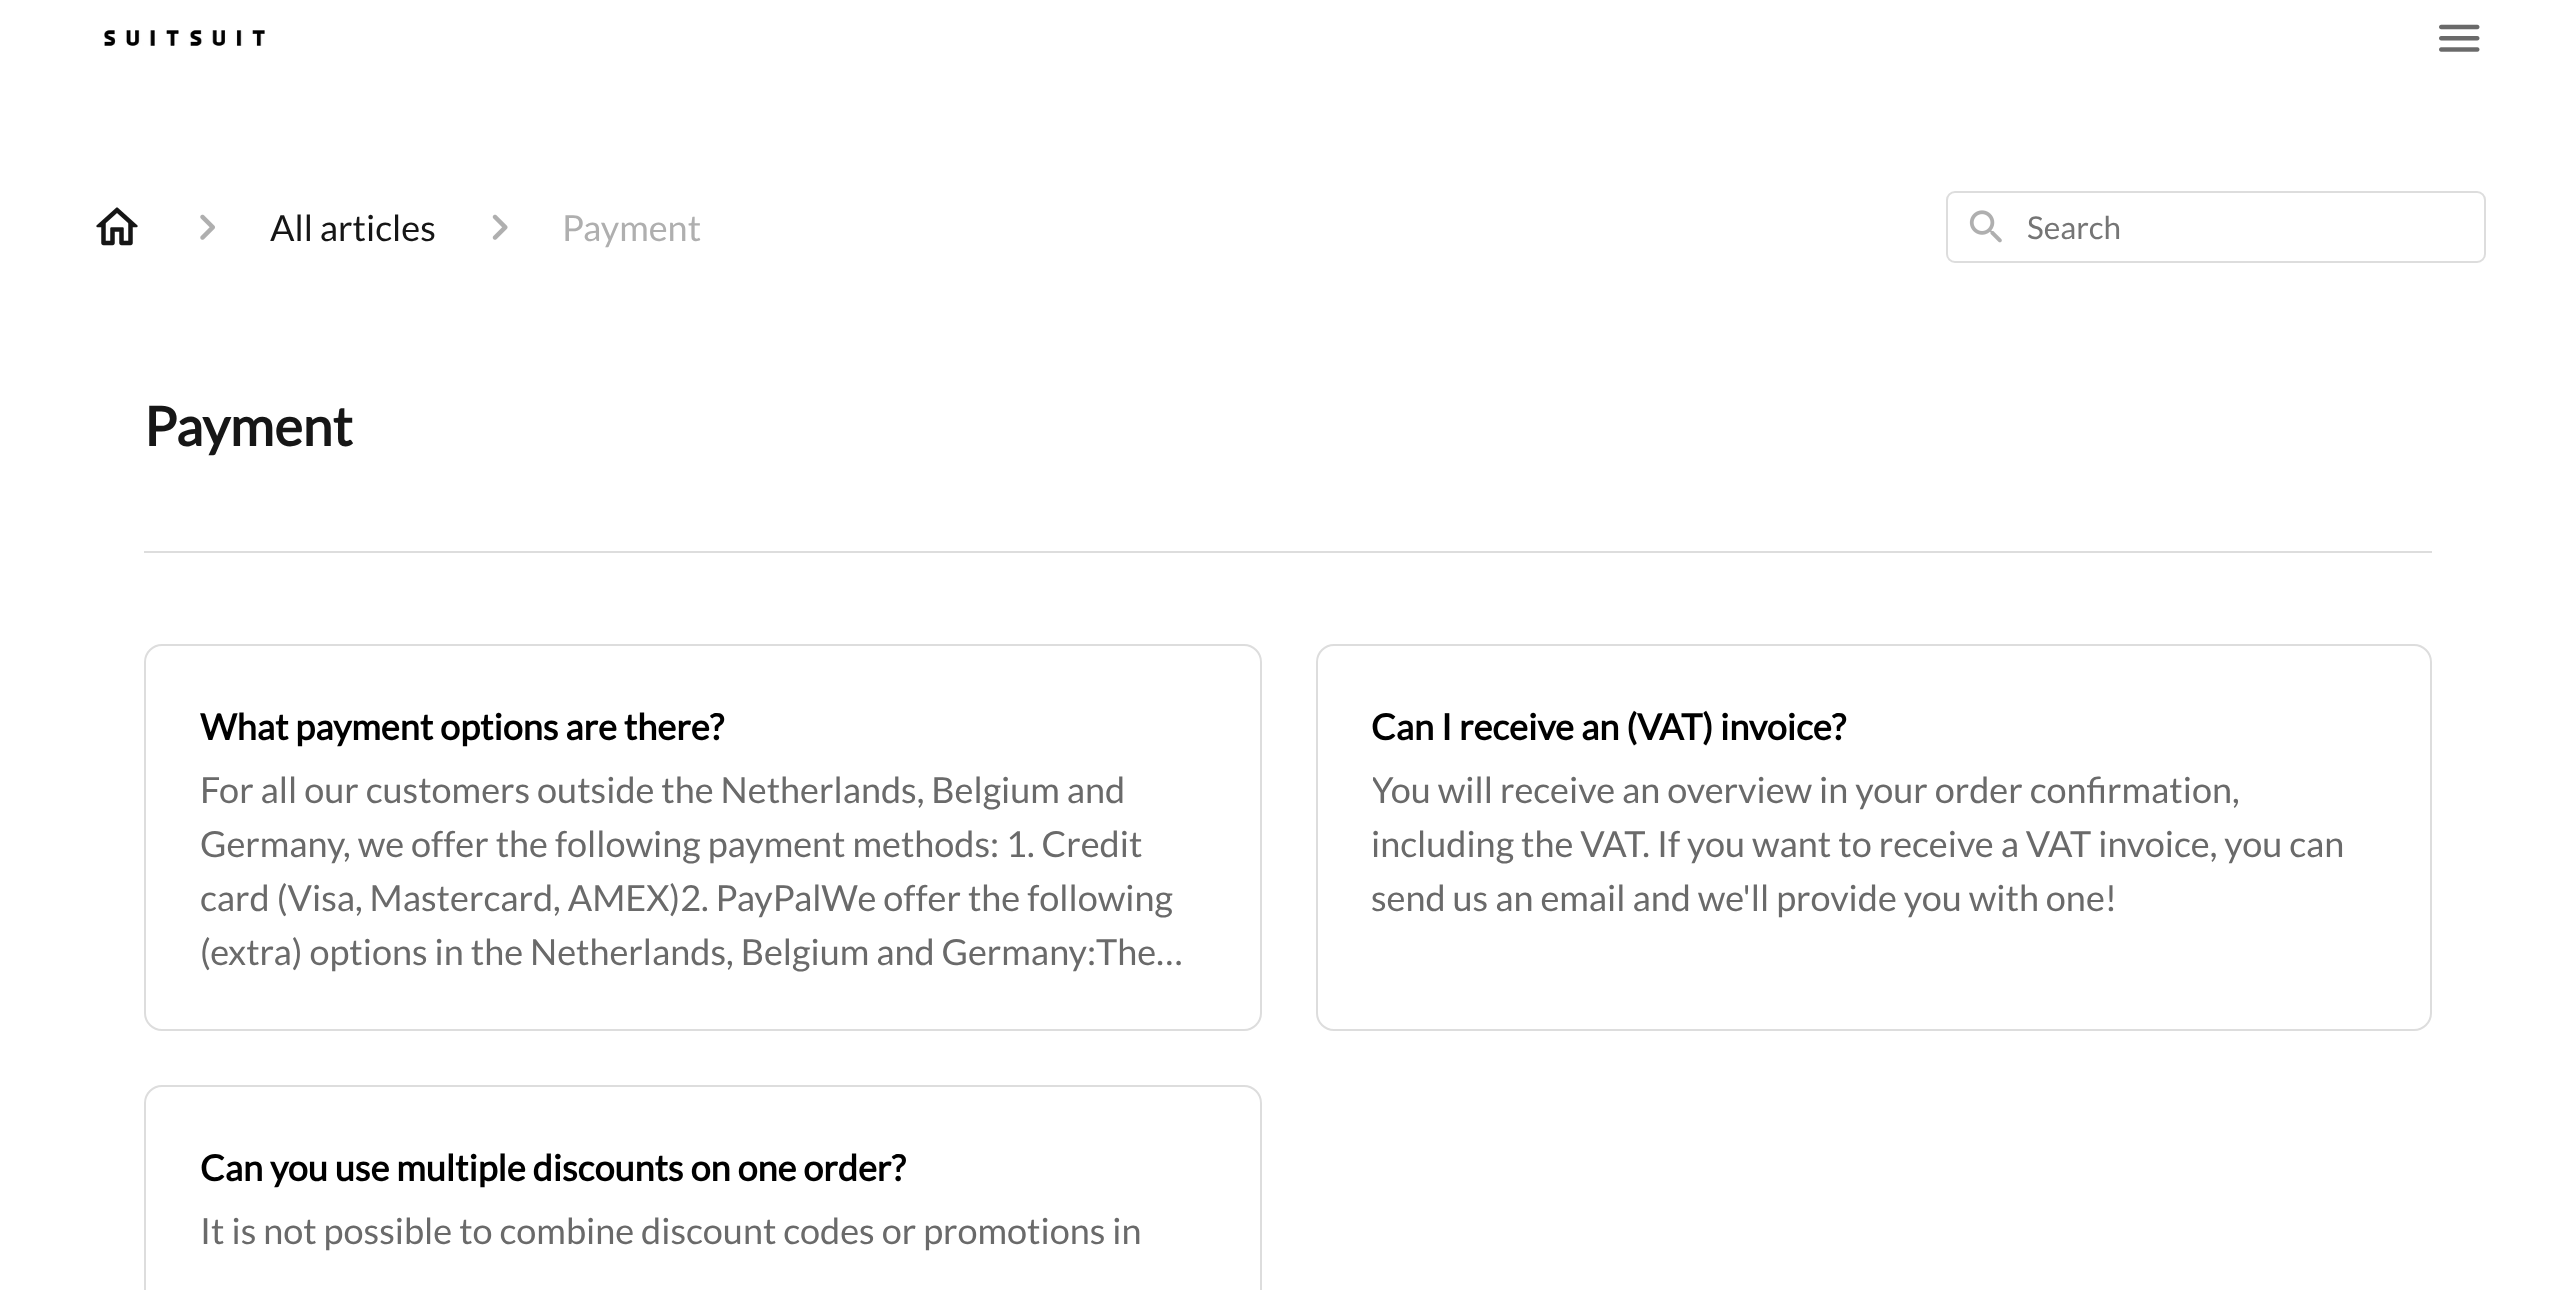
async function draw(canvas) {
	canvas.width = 2575;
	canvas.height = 1290;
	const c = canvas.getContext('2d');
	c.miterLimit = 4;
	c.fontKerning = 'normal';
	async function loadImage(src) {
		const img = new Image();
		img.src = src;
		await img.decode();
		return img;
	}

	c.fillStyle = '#fff';
	c.fillRect(0, 0, 2575, 1290);
	c.drawImage(await loadImage('img1.png'), 104, 30, 161, 16);
	c.drawImage(await loadImage('img2.png'), 2439, 24, 41, 28);
	c.drawImage(await loadImage('img3.png'), 96, 207, 42, 39);
	c.drawImage(await loadImage('img4.png'), 200, 214, 15, 26);
	c.font = '36px Lato';
	c.fillStyle = '#161616';
	c.fillText('All articles', 270, 241);
	c.drawImage(await loadImage('img5.png'), 492, 214, 16, 26);
	c.fillStyle = '#afafaf';
	c.fillText('Payment', 562, 241);
	c.beginPath();
	c.roundRect(1947, 192, 538, 70, 8);
	c.strokeStyle = '#ddd';
	c.lineWidth = 2;
	c.stroke();
	c.drawImage(await loadImage('img6.png'), 1969, 210, 33, 33);
	c.font = '31.5px Lato';
	c.fillStyle = '#757575';
	c.fillText('Search', 2027, 239);
	c.fillStyle = '#ddd';
	c.fillRect(144, 551, 2288, 2);
	c.font = 'bold 54px Lato';
	c.fillStyle = '#161616';
	c.fillText('Payment', 144, 446);
	c.beginPath();
	c.roundRect(145, 645, 1116, 385, 17);
	c.stroke();
	c.font = 'bold 36px Lato';
	c.fillStyle = '#000';
	c.fillText('What payment options are there?', 200, 740);
	c.font = '36px Lato';
	c.fillStyle = '#6a6a6a';
	for (const [text, x, y] of [
		['For all our customers outside the Netherlands, Belgium and', 200, 803],
		['Germany, we offer the following payment methods: 1. Credit', 200, 857],
		['card (Visa, Mastercard, AMEX)2. PayPalWe offer the following', 200, 911],
		['(extra) options in the Netherlands, Belgium and Germany:The…', 200, 965],
	]) {
		c.fillText(text, x, y);
	}
	c.beginPath();
	c.roundRect(1317, 645, 1114, 385, 17);
	c.stroke();
	c.font = 'bold 36px Lato';
	c.fillStyle = '#000';
	c.fillText('Can I receive an (VAT) invoice?', 1371, 740);
	c.save();
	c.beginPath();
	c.rect(1373, 763, 1003, 162);
	c.clip();
	c.font = '36px Lato';
	c.fillStyle = '#6a6a6a';
	c.fillText('You will receive an overview in your order confirmation,', 1371, 803);
	c.restore();
	c.font = '36px Lato';
	c.fillStyle = '#6a6a6a';
	c.fillText('including the VAT. If you want to receive a VAT invoice, you can', 1371, 857);
	c.fillText('send us an email and we\'ll provide you with one!', 1371, 911);
	c.beginPath();
	c.roundRect(145, 1086, 1116, 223, 17);
	c.stroke();
	c.font = 'bold 36px Lato';
	c.fillStyle = '#000';
	c.fillText('Can you use multiple discounts on one order?', 200, 1181);
	c.font = '36px Lato';
	c.fillStyle = '#6a6a6a';
	c.fillText('It is not possible to combine discount codes or promotions in', 200, 1244);
}

draw(document.querySelector('canvas'));
